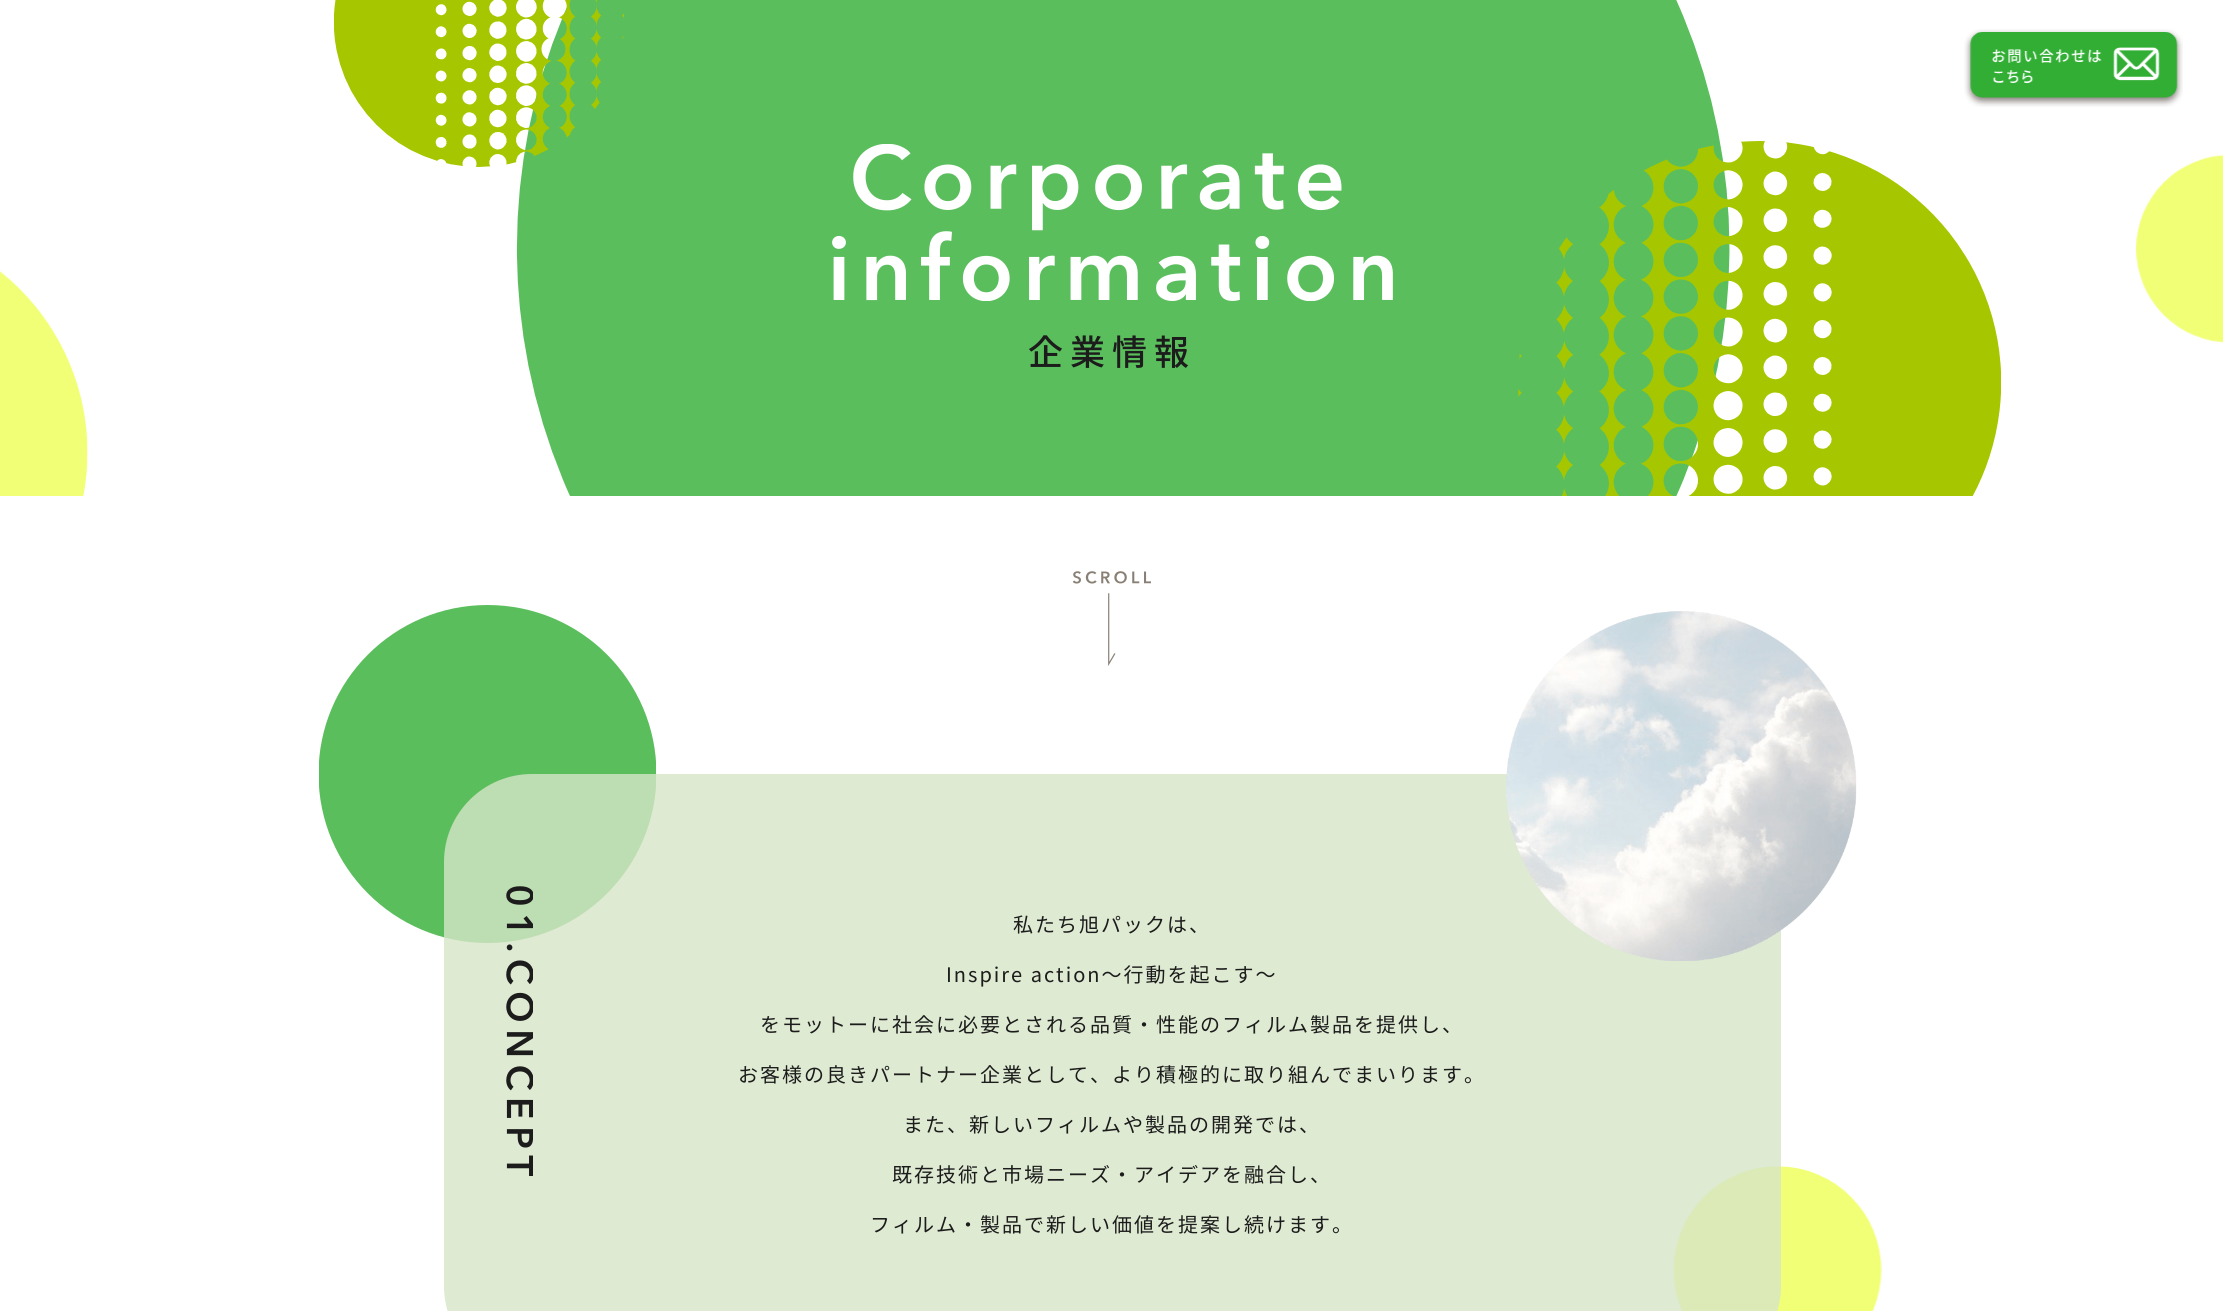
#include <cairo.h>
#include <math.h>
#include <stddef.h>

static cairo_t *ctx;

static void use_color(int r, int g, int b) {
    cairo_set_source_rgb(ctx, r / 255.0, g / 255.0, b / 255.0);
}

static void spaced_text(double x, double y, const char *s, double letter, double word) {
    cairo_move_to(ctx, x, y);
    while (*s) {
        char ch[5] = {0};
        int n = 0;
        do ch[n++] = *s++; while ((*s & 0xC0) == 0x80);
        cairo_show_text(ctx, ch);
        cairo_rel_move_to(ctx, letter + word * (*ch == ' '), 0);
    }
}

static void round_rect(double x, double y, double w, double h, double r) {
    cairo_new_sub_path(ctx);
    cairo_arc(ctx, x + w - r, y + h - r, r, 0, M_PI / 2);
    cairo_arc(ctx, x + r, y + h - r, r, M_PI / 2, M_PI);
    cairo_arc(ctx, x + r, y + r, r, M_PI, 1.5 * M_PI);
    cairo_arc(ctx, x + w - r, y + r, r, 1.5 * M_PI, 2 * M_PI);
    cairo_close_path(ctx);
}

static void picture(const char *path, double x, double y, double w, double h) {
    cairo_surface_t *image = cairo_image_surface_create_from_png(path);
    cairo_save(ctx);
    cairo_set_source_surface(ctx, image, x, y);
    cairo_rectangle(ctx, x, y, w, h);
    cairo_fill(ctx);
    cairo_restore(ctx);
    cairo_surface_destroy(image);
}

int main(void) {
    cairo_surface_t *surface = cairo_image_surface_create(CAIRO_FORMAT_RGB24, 2223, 1311);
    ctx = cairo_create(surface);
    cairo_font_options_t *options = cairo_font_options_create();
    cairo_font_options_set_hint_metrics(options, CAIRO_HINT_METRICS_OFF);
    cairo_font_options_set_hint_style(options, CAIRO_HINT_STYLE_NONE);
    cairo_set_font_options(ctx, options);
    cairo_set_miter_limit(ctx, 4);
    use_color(255, 255, 255);
    cairo_paint(ctx);
    picture("img2.png", 334, 0, 1667, 496);
    picture("img1.png", 1964, 29, 219, 78);
    picture("img3.png", 2136, 154, 87, 189);
    picture("img4.png", 0, 271, 88, 225);
    picture("img5.png", 832, 144, 561, 157);
    cairo_select_font_face(ctx, "Noto Sans JP Medium", CAIRO_FONT_SLANT_NORMAL, CAIRO_FONT_WEIGHT_NORMAL);
    cairo_set_font_size(ctx, 35);
    use_color(28, 28, 28);
    spaced_text(1028, 365, "企業情報", 7, 0);
    picture("img6.png", 1073, 571, 78, 95);
    cairo_save(ctx);
    cairo_rectangle(ctx, 319, 605, 337, 338);
    cairo_clip(ctx);
    use_color(91, 190, 93);
    cairo_arc(ctx, 487.5, 774, 169, 0, 2 * M_PI);
    cairo_fill(ctx);
    cairo_restore(ctx);
    picture("img9.png", 1673, 1166, 209, 145);
    cairo_set_source_rgba(ctx, 0.835, 0.898, 0.78, 0.8);
    round_rect(444, 774, 1337, 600, 88);
    cairo_fill(ctx);
    picture("img7.png", 1506, 611, 351, 350);
    picture("img8.png", 506, 886, 27, 290);
    cairo_select_font_face(ctx, "Noto Sans JP", CAIRO_FONT_SLANT_NORMAL, CAIRO_FONT_WEIGHT_NORMAL);
    cairo_set_font_size(ctx, 20);
    use_color(28, 28, 28);
    spaced_text(1013, 932, "私たち旭パックは、", 2, 0);
    spaced_text(946, 982, "Inspire action～行動を起こす～", 2, 0);
    spaced_text(760, 1032, "をモットーに社会に必要とされる品質・性能のフィルム製品を提供し、", 2, 0);
    spaced_text(738, 1082, "お客様の良きパートナー企業として、より積極的に取り組んでまいります。", 2, 0);
    spaced_text(903, 1132, "また、新しいフィルムや製品の開発では、", 2, 0);
    spaced_text(892, 1182, "既存技術と市場ニーズ・アイデアを融合し、", 2, 0);
    spaced_text(870, 1232, "フィルム・製品で新しい価値を提案し続けます。", 2, 0);
    cairo_surface_write_to_png(surface, "result.png");
    cairo_font_options_destroy(options);
    cairo_destroy(ctx);
    cairo_surface_destroy(surface);
    return 0;
}
